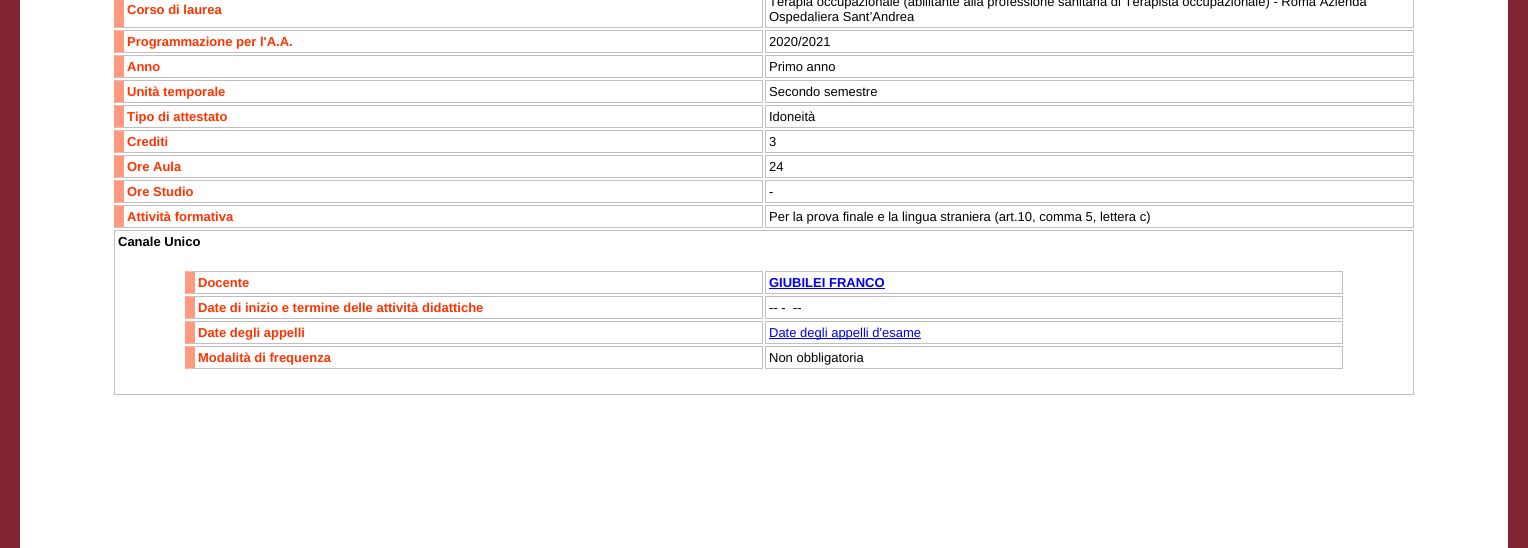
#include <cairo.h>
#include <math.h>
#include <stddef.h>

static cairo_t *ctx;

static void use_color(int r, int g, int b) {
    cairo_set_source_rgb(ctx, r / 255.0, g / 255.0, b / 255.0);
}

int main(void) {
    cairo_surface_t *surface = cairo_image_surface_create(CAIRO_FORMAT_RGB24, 1528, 548);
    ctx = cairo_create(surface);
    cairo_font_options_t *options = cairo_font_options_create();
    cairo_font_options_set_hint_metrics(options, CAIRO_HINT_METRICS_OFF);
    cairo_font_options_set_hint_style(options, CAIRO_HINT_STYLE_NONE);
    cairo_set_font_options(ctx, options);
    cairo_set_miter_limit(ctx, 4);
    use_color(130, 36, 51);
    cairo_paint(ctx);
    use_color(255, 255, 255);
    cairo_rectangle(ctx, 20, 0, 1488, 548);
    cairo_fill(ctx);
    use_color(191, 191, 191);
    cairo_rectangle(ctx, 762, 0, 1, 28);
    cairo_fill(ctx);
    cairo_new_path(ctx);
    cairo_move_to(ctx, 763, 28);
    cairo_line_to(ctx, 114, 28);
    cairo_line_to(ctx, 124, 27);
    cairo_line_to(ctx, 762, 27);
    cairo_close_path(ctx);
    cairo_fill(ctx);
    use_color(255, 154, 128);
    cairo_new_path(ctx);
    cairo_move_to(ctx, 114, 28);
    cairo_line_to(ctx, 114, -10);
    cairo_line_to(ctx, 124, -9);
    cairo_line_to(ctx, 124, 27);
    cairo_close_path(ctx);
    cairo_fill(ctx);
    cairo_select_font_face(ctx, "Liberation Sans", CAIRO_FONT_SLANT_NORMAL, CAIRO_FONT_WEIGHT_BOLD);
    cairo_set_font_size(ctx, 13);
    use_color(255, 51, 0);
    cairo_move_to(ctx, 127, 14);
    cairo_show_text(ctx, "Corso di laurea");
    cairo_rectangle(ctx, 765.5, -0.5, 648, 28);
    use_color(191, 191, 191);
    cairo_set_line_width(ctx, 1);
    cairo_stroke(ctx);
    cairo_select_font_face(ctx, "Liberation Sans", CAIRO_FONT_SLANT_NORMAL, CAIRO_FONT_WEIGHT_NORMAL);
    use_color(0, 0, 0);
    cairo_move_to(ctx, 769, 6);
    cairo_show_text(ctx, "Terapia occupazionale (abilitante alla professione sanitaria di Terapista occupazionale) - Roma Azienda");
    cairo_move_to(ctx, 769, 21);
    cairo_show_text(ctx, "Ospedaliera Sant’Andrea");
    use_color(191, 191, 191);
    cairo_new_path(ctx);
    cairo_move_to(ctx, 114, 30);
    cairo_line_to(ctx, 763, 30);
    cairo_line_to(ctx, 762, 31);
    cairo_line_to(ctx, 124, 31);
    cairo_close_path(ctx);
    cairo_fill(ctx);
    cairo_rectangle(ctx, 762, 30, 1, 23);
    cairo_fill(ctx);
    cairo_new_path(ctx);
    cairo_move_to(ctx, 763, 53);
    cairo_line_to(ctx, 114, 53);
    cairo_line_to(ctx, 124, 52);
    cairo_line_to(ctx, 762, 52);
    cairo_close_path(ctx);
    cairo_fill(ctx);
    use_color(255, 154, 128);
    cairo_new_path(ctx);
    cairo_move_to(ctx, 114, 53);
    cairo_line_to(ctx, 114, 30);
    cairo_line_to(ctx, 124, 31);
    cairo_line_to(ctx, 124, 52);
    cairo_close_path(ctx);
    cairo_fill(ctx);
    cairo_select_font_face(ctx, "Liberation Sans", CAIRO_FONT_SLANT_NORMAL, CAIRO_FONT_WEIGHT_BOLD);
    use_color(255, 51, 0);
    cairo_move_to(ctx, 127, 46);
    cairo_show_text(ctx, "Programmazione per l'A.A.");
    cairo_rectangle(ctx, 765.5, 30.5, 648, 22);
    use_color(191, 191, 191);
    cairo_stroke(ctx);
    cairo_select_font_face(ctx, "Liberation Sans", CAIRO_FONT_SLANT_NORMAL, CAIRO_FONT_WEIGHT_NORMAL);
    use_color(0, 0, 0);
    cairo_move_to(ctx, 769, 46);
    cairo_show_text(ctx, "2020/2021");
    use_color(191, 191, 191);
    cairo_new_path(ctx);
    cairo_move_to(ctx, 114, 55);
    cairo_line_to(ctx, 763, 55);
    cairo_line_to(ctx, 762, 56);
    cairo_line_to(ctx, 124, 56);
    cairo_close_path(ctx);
    cairo_fill(ctx);
    cairo_rectangle(ctx, 762, 55, 1, 23);
    cairo_fill(ctx);
    cairo_new_path(ctx);
    cairo_move_to(ctx, 763, 78);
    cairo_line_to(ctx, 114, 78);
    cairo_line_to(ctx, 124, 77);
    cairo_line_to(ctx, 762, 77);
    cairo_close_path(ctx);
    cairo_fill(ctx);
    use_color(255, 154, 128);
    cairo_new_path(ctx);
    cairo_move_to(ctx, 114, 78);
    cairo_line_to(ctx, 114, 55);
    cairo_line_to(ctx, 124, 56);
    cairo_line_to(ctx, 124, 77);
    cairo_close_path(ctx);
    cairo_fill(ctx);
    cairo_select_font_face(ctx, "Liberation Sans", CAIRO_FONT_SLANT_NORMAL, CAIRO_FONT_WEIGHT_BOLD);
    use_color(255, 51, 0);
    cairo_move_to(ctx, 127, 71);
    cairo_show_text(ctx, "Anno");
    cairo_rectangle(ctx, 765.5, 55.5, 648, 22);
    use_color(191, 191, 191);
    cairo_stroke(ctx);
    cairo_select_font_face(ctx, "Liberation Sans", CAIRO_FONT_SLANT_NORMAL, CAIRO_FONT_WEIGHT_NORMAL);
    use_color(0, 0, 0);
    cairo_move_to(ctx, 769, 71);
    cairo_show_text(ctx, "Primo anno");
    use_color(191, 191, 191);
    cairo_new_path(ctx);
    cairo_move_to(ctx, 114, 80);
    cairo_line_to(ctx, 763, 80);
    cairo_line_to(ctx, 762, 81);
    cairo_line_to(ctx, 124, 81);
    cairo_close_path(ctx);
    cairo_fill(ctx);
    cairo_rectangle(ctx, 762, 80, 1, 23);
    cairo_fill(ctx);
    cairo_new_path(ctx);
    cairo_move_to(ctx, 763, 103);
    cairo_line_to(ctx, 114, 103);
    cairo_line_to(ctx, 124, 102);
    cairo_line_to(ctx, 762, 102);
    cairo_close_path(ctx);
    cairo_fill(ctx);
    use_color(255, 154, 128);
    cairo_new_path(ctx);
    cairo_move_to(ctx, 114, 103);
    cairo_line_to(ctx, 114, 80);
    cairo_line_to(ctx, 124, 81);
    cairo_line_to(ctx, 124, 102);
    cairo_close_path(ctx);
    cairo_fill(ctx);
    cairo_select_font_face(ctx, "Liberation Sans", CAIRO_FONT_SLANT_NORMAL, CAIRO_FONT_WEIGHT_BOLD);
    use_color(255, 51, 0);
    cairo_move_to(ctx, 127, 96);
    cairo_show_text(ctx, "Unità temporale");
    cairo_rectangle(ctx, 765.5, 80.5, 648, 22);
    use_color(191, 191, 191);
    cairo_stroke(ctx);
    cairo_select_font_face(ctx, "Liberation Sans", CAIRO_FONT_SLANT_NORMAL, CAIRO_FONT_WEIGHT_NORMAL);
    use_color(0, 0, 0);
    cairo_move_to(ctx, 769, 96);
    cairo_show_text(ctx, "Secondo semestre");
    use_color(191, 191, 191);
    cairo_new_path(ctx);
    cairo_move_to(ctx, 114, 105);
    cairo_line_to(ctx, 763, 105);
    cairo_line_to(ctx, 762, 106);
    cairo_line_to(ctx, 124, 106);
    cairo_close_path(ctx);
    cairo_fill(ctx);
    cairo_rectangle(ctx, 762, 105, 1, 23);
    cairo_fill(ctx);
    cairo_new_path(ctx);
    cairo_move_to(ctx, 763, 128);
    cairo_line_to(ctx, 114, 128);
    cairo_line_to(ctx, 124, 127);
    cairo_line_to(ctx, 762, 127);
    cairo_close_path(ctx);
    cairo_fill(ctx);
    use_color(255, 154, 128);
    cairo_new_path(ctx);
    cairo_move_to(ctx, 114, 128);
    cairo_line_to(ctx, 114, 105);
    cairo_line_to(ctx, 124, 106);
    cairo_line_to(ctx, 124, 127);
    cairo_close_path(ctx);
    cairo_fill(ctx);
    cairo_select_font_face(ctx, "Liberation Sans", CAIRO_FONT_SLANT_NORMAL, CAIRO_FONT_WEIGHT_BOLD);
    use_color(255, 51, 0);
    cairo_move_to(ctx, 127, 121);
    cairo_show_text(ctx, "Tipo di attestato");
    cairo_rectangle(ctx, 765.5, 105.5, 648, 22);
    use_color(191, 191, 191);
    cairo_stroke(ctx);
    cairo_select_font_face(ctx, "Liberation Sans", CAIRO_FONT_SLANT_NORMAL, CAIRO_FONT_WEIGHT_NORMAL);
    use_color(0, 0, 0);
    cairo_move_to(ctx, 769, 121);
    cairo_show_text(ctx, "Idoneità");
    use_color(191, 191, 191);
    cairo_new_path(ctx);
    cairo_move_to(ctx, 114, 130);
    cairo_line_to(ctx, 763, 130);
    cairo_line_to(ctx, 762, 131);
    cairo_line_to(ctx, 124, 131);
    cairo_close_path(ctx);
    cairo_fill(ctx);
    cairo_rectangle(ctx, 762, 130, 1, 23);
    cairo_fill(ctx);
    cairo_new_path(ctx);
    cairo_move_to(ctx, 763, 153);
    cairo_line_to(ctx, 114, 153);
    cairo_line_to(ctx, 124, 152);
    cairo_line_to(ctx, 762, 152);
    cairo_close_path(ctx);
    cairo_fill(ctx);
    use_color(255, 154, 128);
    cairo_new_path(ctx);
    cairo_move_to(ctx, 114, 153);
    cairo_line_to(ctx, 114, 130);
    cairo_line_to(ctx, 124, 131);
    cairo_line_to(ctx, 124, 152);
    cairo_close_path(ctx);
    cairo_fill(ctx);
    cairo_select_font_face(ctx, "Liberation Sans", CAIRO_FONT_SLANT_NORMAL, CAIRO_FONT_WEIGHT_BOLD);
    use_color(255, 51, 0);
    cairo_move_to(ctx, 127, 146);
    cairo_show_text(ctx, "Crediti");
    cairo_rectangle(ctx, 765.5, 130.5, 648, 22);
    use_color(191, 191, 191);
    cairo_stroke(ctx);
    cairo_select_font_face(ctx, "Liberation Sans", CAIRO_FONT_SLANT_NORMAL, CAIRO_FONT_WEIGHT_NORMAL);
    use_color(0, 0, 0);
    cairo_move_to(ctx, 769, 146);
    cairo_show_text(ctx, "3");
    use_color(191, 191, 191);
    cairo_new_path(ctx);
    cairo_move_to(ctx, 114, 155);
    cairo_line_to(ctx, 763, 155);
    cairo_line_to(ctx, 762, 156);
    cairo_line_to(ctx, 124, 156);
    cairo_close_path(ctx);
    cairo_fill(ctx);
    cairo_rectangle(ctx, 762, 155, 1, 23);
    cairo_fill(ctx);
    cairo_new_path(ctx);
    cairo_move_to(ctx, 763, 178);
    cairo_line_to(ctx, 114, 178);
    cairo_line_to(ctx, 124, 177);
    cairo_line_to(ctx, 762, 177);
    cairo_close_path(ctx);
    cairo_fill(ctx);
    use_color(255, 154, 128);
    cairo_new_path(ctx);
    cairo_move_to(ctx, 114, 178);
    cairo_line_to(ctx, 114, 155);
    cairo_line_to(ctx, 124, 156);
    cairo_line_to(ctx, 124, 177);
    cairo_close_path(ctx);
    cairo_fill(ctx);
    cairo_select_font_face(ctx, "Liberation Sans", CAIRO_FONT_SLANT_NORMAL, CAIRO_FONT_WEIGHT_BOLD);
    use_color(255, 51, 0);
    cairo_move_to(ctx, 127, 171);
    cairo_show_text(ctx, "Ore Aula");
    cairo_rectangle(ctx, 765.5, 155.5, 648, 22);
    use_color(191, 191, 191);
    cairo_stroke(ctx);
    cairo_select_font_face(ctx, "Liberation Sans", CAIRO_FONT_SLANT_NORMAL, CAIRO_FONT_WEIGHT_NORMAL);
    use_color(0, 0, 0);
    cairo_move_to(ctx, 769, 171);
    cairo_show_text(ctx, "24");
    use_color(191, 191, 191);
    cairo_new_path(ctx);
    cairo_move_to(ctx, 114, 180);
    cairo_line_to(ctx, 763, 180);
    cairo_line_to(ctx, 762, 181);
    cairo_line_to(ctx, 124, 181);
    cairo_close_path(ctx);
    cairo_fill(ctx);
    cairo_rectangle(ctx, 762, 180, 1, 23);
    cairo_fill(ctx);
    cairo_new_path(ctx);
    cairo_move_to(ctx, 763, 203);
    cairo_line_to(ctx, 114, 203);
    cairo_line_to(ctx, 124, 202);
    cairo_line_to(ctx, 762, 202);
    cairo_close_path(ctx);
    cairo_fill(ctx);
    use_color(255, 154, 128);
    cairo_new_path(ctx);
    cairo_move_to(ctx, 114, 203);
    cairo_line_to(ctx, 114, 180);
    cairo_line_to(ctx, 124, 181);
    cairo_line_to(ctx, 124, 202);
    cairo_close_path(ctx);
    cairo_fill(ctx);
    cairo_select_font_face(ctx, "Liberation Sans", CAIRO_FONT_SLANT_NORMAL, CAIRO_FONT_WEIGHT_BOLD);
    use_color(255, 51, 0);
    cairo_move_to(ctx, 127, 196);
    cairo_show_text(ctx, "Ore Studio");
    cairo_rectangle(ctx, 765.5, 180.5, 648, 22);
    use_color(191, 191, 191);
    cairo_stroke(ctx);
    cairo_select_font_face(ctx, "Liberation Sans", CAIRO_FONT_SLANT_NORMAL, CAIRO_FONT_WEIGHT_NORMAL);
    use_color(0, 0, 0);
    cairo_move_to(ctx, 769, 196);
    cairo_show_text(ctx, "-");
    use_color(191, 191, 191);
    cairo_new_path(ctx);
    cairo_move_to(ctx, 114, 205);
    cairo_line_to(ctx, 763, 205);
    cairo_line_to(ctx, 762, 206);
    cairo_line_to(ctx, 124, 206);
    cairo_close_path(ctx);
    cairo_fill(ctx);
    cairo_rectangle(ctx, 762, 205, 1, 23);
    cairo_fill(ctx);
    cairo_new_path(ctx);
    cairo_move_to(ctx, 763, 228);
    cairo_line_to(ctx, 114, 228);
    cairo_line_to(ctx, 124, 227);
    cairo_line_to(ctx, 762, 227);
    cairo_close_path(ctx);
    cairo_fill(ctx);
    use_color(255, 154, 128);
    cairo_new_path(ctx);
    cairo_move_to(ctx, 114, 228);
    cairo_line_to(ctx, 114, 205);
    cairo_line_to(ctx, 124, 206);
    cairo_line_to(ctx, 124, 227);
    cairo_close_path(ctx);
    cairo_fill(ctx);
    cairo_select_font_face(ctx, "Liberation Sans", CAIRO_FONT_SLANT_NORMAL, CAIRO_FONT_WEIGHT_BOLD);
    use_color(255, 51, 0);
    cairo_move_to(ctx, 127, 221);
    cairo_show_text(ctx, "Attività formativa");
    cairo_rectangle(ctx, 765.5, 205.5, 648, 22);
    use_color(191, 191, 191);
    cairo_stroke(ctx);
    cairo_select_font_face(ctx, "Liberation Sans", CAIRO_FONT_SLANT_NORMAL, CAIRO_FONT_WEIGHT_NORMAL);
    use_color(0, 0, 0);
    cairo_move_to(ctx, 769, 221);
    cairo_show_text(ctx, "Per la prova finale e la lingua straniera (art.10, comma 5, lettera c)");
    cairo_rectangle(ctx, 114.5, 230.5, 1299, 164);
    use_color(191, 191, 191);
    cairo_stroke(ctx);
    cairo_select_font_face(ctx, "Liberation Sans", CAIRO_FONT_SLANT_NORMAL, CAIRO_FONT_WEIGHT_BOLD);
    use_color(0, 0, 0);
    cairo_move_to(ctx, 118, 246);
    cairo_show_text(ctx, "Canale Unico");
    use_color(191, 191, 191);
    cairo_new_path(ctx);
    cairo_move_to(ctx, 185, 271);
    cairo_line_to(ctx, 763, 271);
    cairo_line_to(ctx, 762, 272);
    cairo_line_to(ctx, 195, 272);
    cairo_close_path(ctx);
    cairo_fill(ctx);
    cairo_rectangle(ctx, 762, 271, 1, 23);
    cairo_fill(ctx);
    cairo_new_path(ctx);
    cairo_move_to(ctx, 763, 294);
    cairo_line_to(ctx, 185, 294);
    cairo_line_to(ctx, 195, 293);
    cairo_line_to(ctx, 762, 293);
    cairo_close_path(ctx);
    cairo_fill(ctx);
    use_color(255, 154, 128);
    cairo_new_path(ctx);
    cairo_move_to(ctx, 185, 294);
    cairo_line_to(ctx, 185, 271);
    cairo_line_to(ctx, 195, 272);
    cairo_line_to(ctx, 195, 293);
    cairo_close_path(ctx);
    cairo_fill(ctx);
    use_color(255, 51, 0);
    cairo_move_to(ctx, 198, 287);
    cairo_show_text(ctx, "Docente");
    cairo_rectangle(ctx, 765.5, 271.5, 577, 22);
    use_color(191, 191, 191);
    cairo_stroke(ctx);
    use_color(0, 0, 238);
    cairo_move_to(ctx, 769, 287);
    cairo_show_text(ctx, "GIUBILEI FRANCO");
    cairo_rectangle(ctx, 769, 288, 116, 1);
    cairo_fill(ctx);
    use_color(191, 191, 191);
    cairo_new_path(ctx);
    cairo_move_to(ctx, 185, 296);
    cairo_line_to(ctx, 763, 296);
    cairo_line_to(ctx, 762, 297);
    cairo_line_to(ctx, 195, 297);
    cairo_close_path(ctx);
    cairo_fill(ctx);
    cairo_rectangle(ctx, 762, 296, 1, 23);
    cairo_fill(ctx);
    cairo_new_path(ctx);
    cairo_move_to(ctx, 763, 319);
    cairo_line_to(ctx, 185, 319);
    cairo_line_to(ctx, 195, 318);
    cairo_line_to(ctx, 762, 318);
    cairo_close_path(ctx);
    cairo_fill(ctx);
    use_color(255, 154, 128);
    cairo_new_path(ctx);
    cairo_move_to(ctx, 185, 319);
    cairo_line_to(ctx, 185, 296);
    cairo_line_to(ctx, 195, 297);
    cairo_line_to(ctx, 195, 318);
    cairo_close_path(ctx);
    cairo_fill(ctx);
    use_color(255, 51, 0);
    cairo_move_to(ctx, 198, 312);
    cairo_show_text(ctx, "Date di inizio e termine delle attività didattiche");
    cairo_rectangle(ctx, 765.5, 296.5, 577, 22);
    use_color(191, 191, 191);
    cairo_stroke(ctx);
    cairo_select_font_face(ctx, "Liberation Sans", CAIRO_FONT_SLANT_NORMAL, CAIRO_FONT_WEIGHT_NORMAL);
    use_color(0, 0, 0);
    cairo_move_to(ctx, 769, 312);
    cairo_show_text(ctx, "-- -");
    cairo_move_to(ctx, 793, 312);
    cairo_show_text(ctx, "--");
    use_color(191, 191, 191);
    cairo_new_path(ctx);
    cairo_move_to(ctx, 185, 321);
    cairo_line_to(ctx, 763, 321);
    cairo_line_to(ctx, 762, 322);
    cairo_line_to(ctx, 195, 322);
    cairo_close_path(ctx);
    cairo_fill(ctx);
    cairo_rectangle(ctx, 762, 321, 1, 23);
    cairo_fill(ctx);
    cairo_new_path(ctx);
    cairo_move_to(ctx, 763, 344);
    cairo_line_to(ctx, 185, 344);
    cairo_line_to(ctx, 195, 343);
    cairo_line_to(ctx, 762, 343);
    cairo_close_path(ctx);
    cairo_fill(ctx);
    use_color(255, 154, 128);
    cairo_new_path(ctx);
    cairo_move_to(ctx, 185, 344);
    cairo_line_to(ctx, 185, 321);
    cairo_line_to(ctx, 195, 322);
    cairo_line_to(ctx, 195, 343);
    cairo_close_path(ctx);
    cairo_fill(ctx);
    cairo_select_font_face(ctx, "Liberation Sans", CAIRO_FONT_SLANT_NORMAL, CAIRO_FONT_WEIGHT_BOLD);
    use_color(255, 51, 0);
    cairo_move_to(ctx, 198, 337);
    cairo_show_text(ctx, "Date degli appelli");
    cairo_rectangle(ctx, 765.5, 321.5, 577, 22);
    use_color(191, 191, 191);
    cairo_stroke(ctx);
    use_color(0, 0, 238);
    cairo_rectangle(ctx, 769, 338, 152, 1);
    cairo_fill(ctx);
    cairo_select_font_face(ctx, "Liberation Sans", CAIRO_FONT_SLANT_NORMAL, CAIRO_FONT_WEIGHT_NORMAL);
    cairo_move_to(ctx, 769, 337);
    cairo_show_text(ctx, "Date degli appelli d'esame");
    use_color(191, 191, 191);
    cairo_new_path(ctx);
    cairo_move_to(ctx, 185, 346);
    cairo_line_to(ctx, 763, 346);
    cairo_line_to(ctx, 762, 347);
    cairo_line_to(ctx, 195, 347);
    cairo_close_path(ctx);
    cairo_fill(ctx);
    cairo_rectangle(ctx, 762, 346, 1, 23);
    cairo_fill(ctx);
    cairo_new_path(ctx);
    cairo_move_to(ctx, 763, 369);
    cairo_line_to(ctx, 185, 369);
    cairo_line_to(ctx, 195, 368);
    cairo_line_to(ctx, 762, 368);
    cairo_close_path(ctx);
    cairo_fill(ctx);
    use_color(255, 154, 128);
    cairo_new_path(ctx);
    cairo_move_to(ctx, 185, 369);
    cairo_line_to(ctx, 185, 346);
    cairo_line_to(ctx, 195, 347);
    cairo_line_to(ctx, 195, 368);
    cairo_close_path(ctx);
    cairo_fill(ctx);
    cairo_select_font_face(ctx, "Liberation Sans", CAIRO_FONT_SLANT_NORMAL, CAIRO_FONT_WEIGHT_BOLD);
    use_color(255, 51, 0);
    cairo_move_to(ctx, 198, 362);
    cairo_show_text(ctx, "Modalità di frequenza");
    cairo_rectangle(ctx, 765.5, 346.5, 577, 22);
    use_color(191, 191, 191);
    cairo_stroke(ctx);
    cairo_select_font_face(ctx, "Liberation Sans", CAIRO_FONT_SLANT_NORMAL, CAIRO_FONT_WEIGHT_NORMAL);
    use_color(0, 0, 0);
    cairo_move_to(ctx, 769, 362);
    cairo_show_text(ctx, "Non obbligatoria");
    cairo_surface_write_to_png(surface, "result.png");
    cairo_font_options_destroy(options);
    cairo_destroy(ctx);
    cairo_surface_destroy(surface);
    return 0;
}
